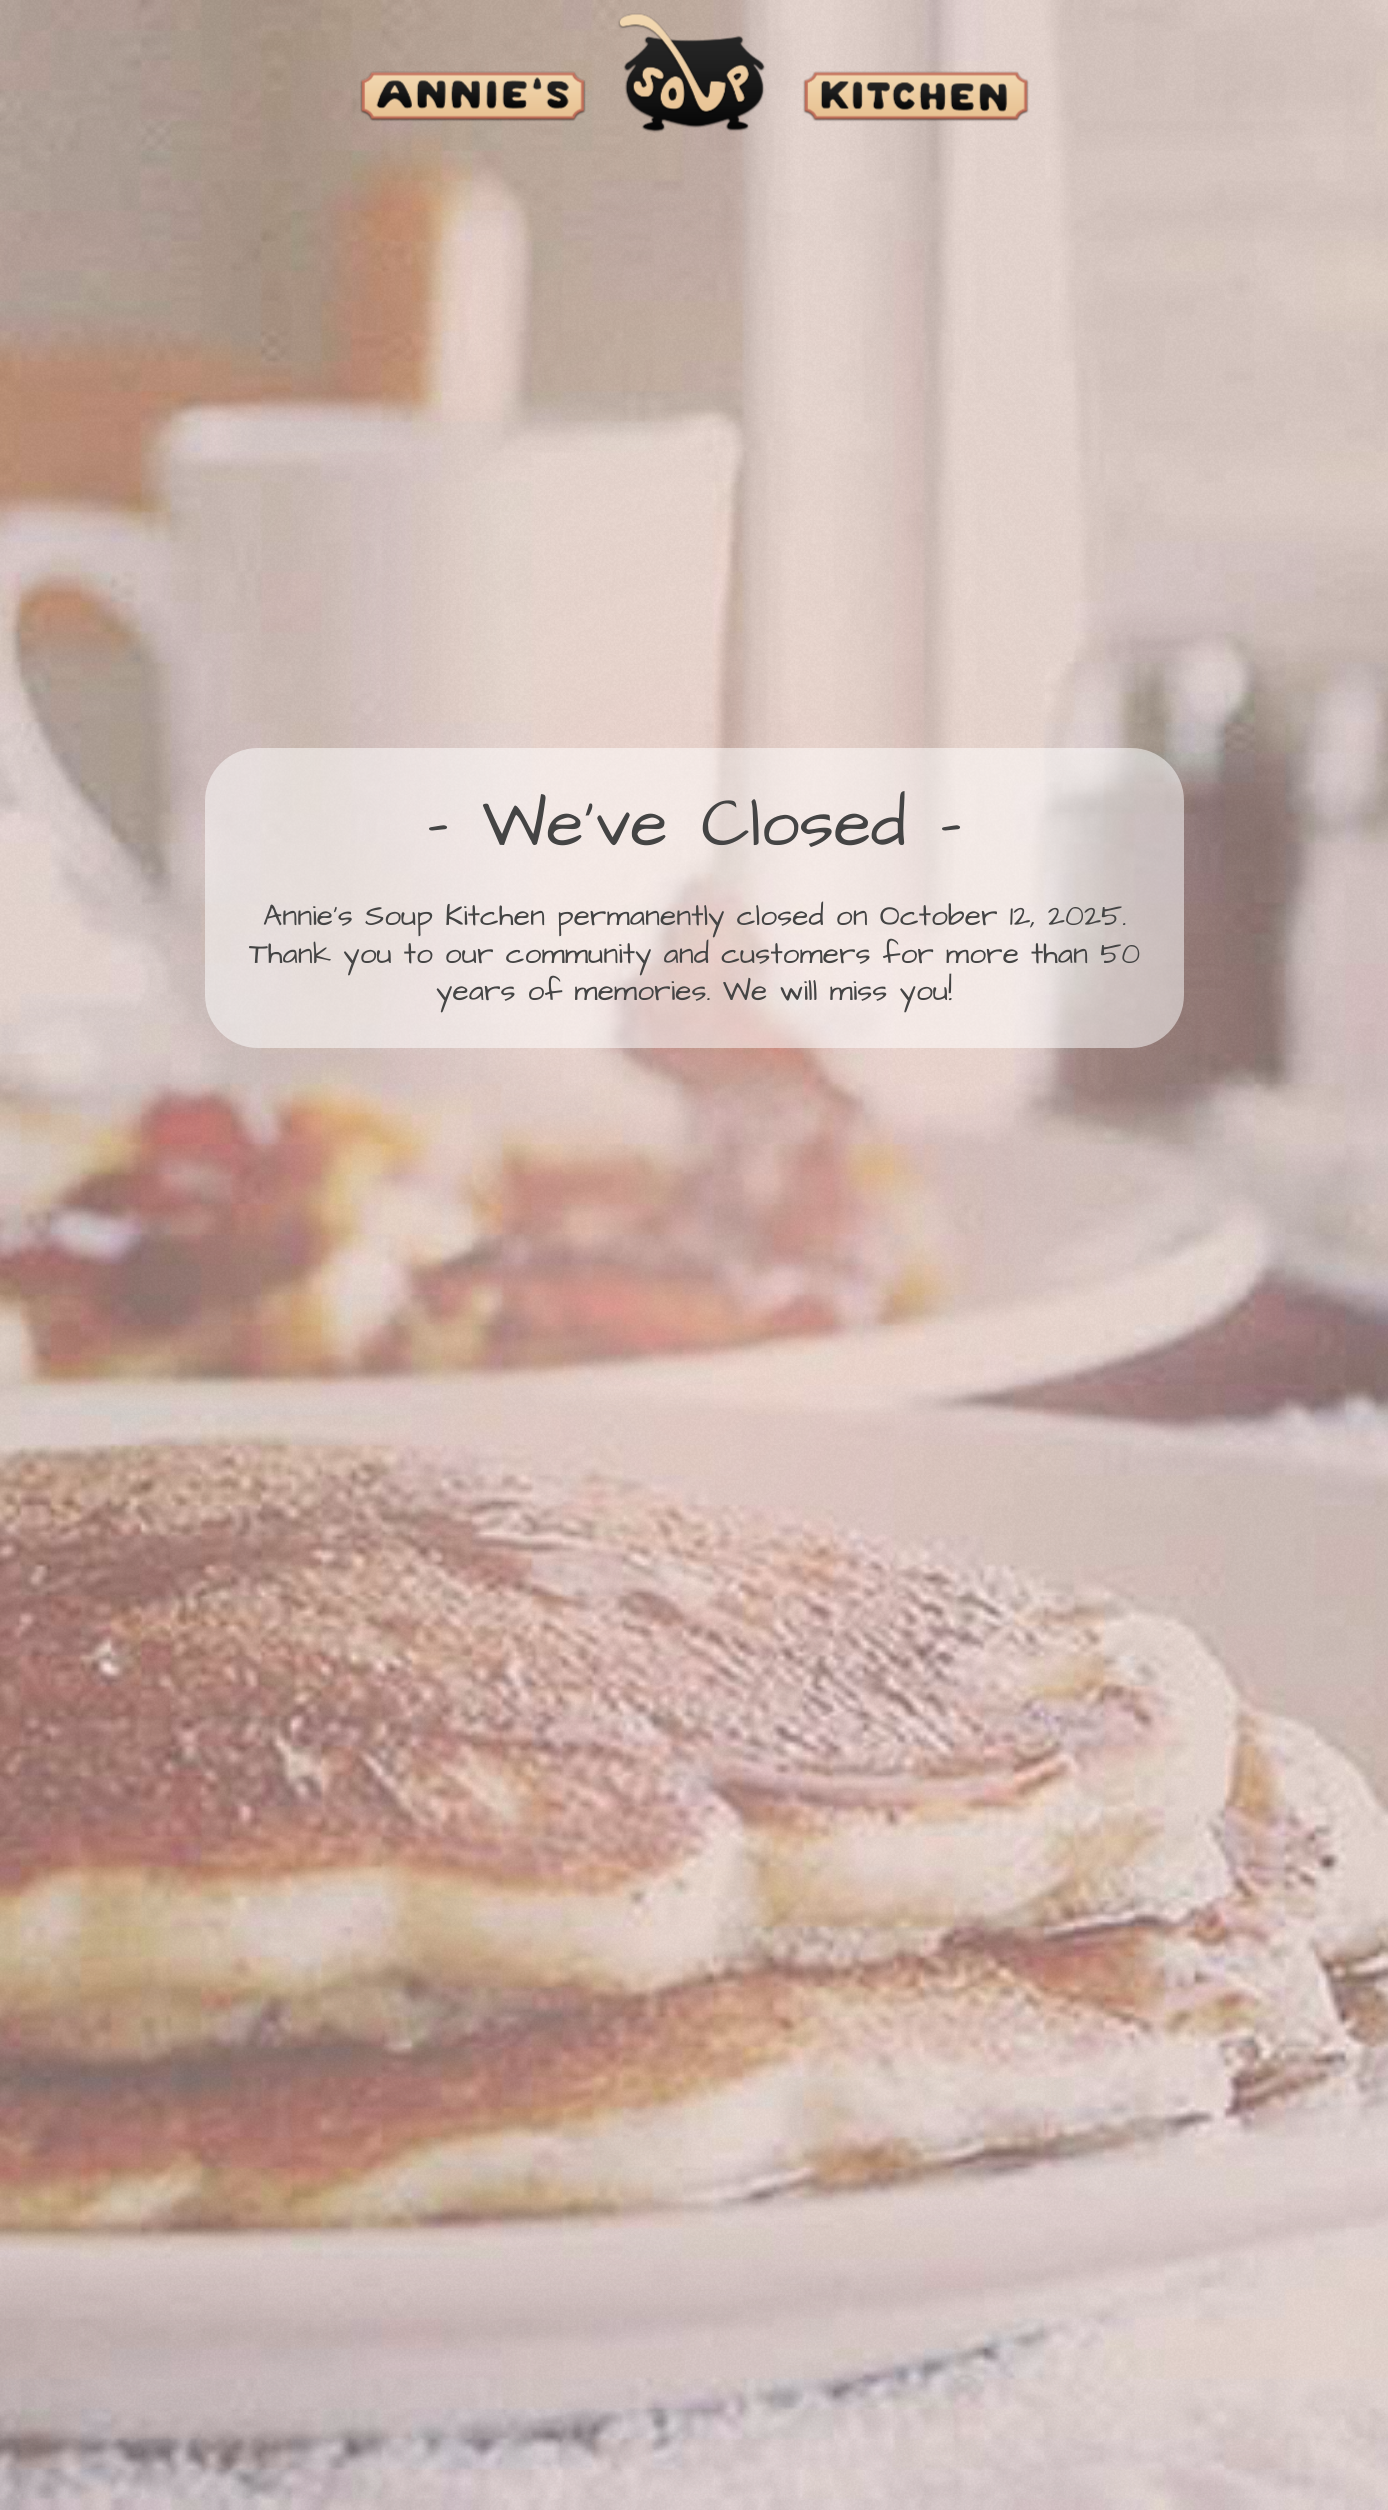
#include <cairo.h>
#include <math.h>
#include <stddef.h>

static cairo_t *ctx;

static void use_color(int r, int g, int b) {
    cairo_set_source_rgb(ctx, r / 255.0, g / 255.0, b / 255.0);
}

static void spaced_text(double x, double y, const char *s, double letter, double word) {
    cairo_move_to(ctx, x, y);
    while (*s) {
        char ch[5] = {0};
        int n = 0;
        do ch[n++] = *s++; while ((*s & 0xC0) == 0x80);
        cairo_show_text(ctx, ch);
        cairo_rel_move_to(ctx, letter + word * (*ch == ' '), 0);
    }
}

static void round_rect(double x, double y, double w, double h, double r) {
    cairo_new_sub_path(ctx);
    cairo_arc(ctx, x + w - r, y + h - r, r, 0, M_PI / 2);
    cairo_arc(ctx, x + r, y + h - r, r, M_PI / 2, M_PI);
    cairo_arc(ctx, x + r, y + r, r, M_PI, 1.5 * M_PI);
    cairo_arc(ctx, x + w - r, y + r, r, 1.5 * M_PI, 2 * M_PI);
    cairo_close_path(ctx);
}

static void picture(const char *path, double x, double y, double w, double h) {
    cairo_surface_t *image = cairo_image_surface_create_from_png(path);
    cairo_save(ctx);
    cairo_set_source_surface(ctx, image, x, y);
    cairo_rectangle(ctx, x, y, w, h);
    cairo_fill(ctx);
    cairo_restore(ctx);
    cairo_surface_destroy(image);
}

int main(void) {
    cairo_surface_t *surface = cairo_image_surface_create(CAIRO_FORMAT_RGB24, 1388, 2510);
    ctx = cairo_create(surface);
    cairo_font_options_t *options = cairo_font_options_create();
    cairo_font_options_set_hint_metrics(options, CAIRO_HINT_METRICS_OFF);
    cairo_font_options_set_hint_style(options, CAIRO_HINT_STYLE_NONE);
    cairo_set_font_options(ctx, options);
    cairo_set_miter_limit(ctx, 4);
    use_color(255, 255, 255);
    cairo_paint(ctx);
    picture("img1.png", 0, 0, 1388, 2510);
    picture("img2.png", 0, 0, 1388, 2510);
    picture("img3.png", 360, 13, 669, 120);
    cairo_set_source_rgba(ctx, 1, 1, 1, 0.5);
    round_rect(205, 748, 979, 300, 53);
    cairo_fill(ctx);
    cairo_select_font_face(ctx, "Architects Daughter", CAIRO_FONT_SLANT_NORMAL, CAIRO_FONT_WEIGHT_NORMAL);
    cairo_set_font_size(ctx, 68.75);
    use_color(68, 68, 68);
    spaced_text(427, 845, "- We've Closed -", 0, 6);
    cairo_set_font_size(ctx, 30);
    cairo_move_to(ctx, 263, 925);
    cairo_show_text(ctx, "Annie's Soup Kitchen permanently closed on October 12, 2025.");
    cairo_move_to(ctx, 249, 963);
    cairo_show_text(ctx, "Thank you to our community and customers for more than 50");
    cairo_move_to(ctx, 436, 1000);
    cairo_show_text(ctx, "years of memories. We will miss you!");
    cairo_surface_write_to_png(surface, "result.png");
    cairo_font_options_destroy(options);
    cairo_destroy(ctx);
    cairo_surface_destroy(surface);
    return 0;
}
